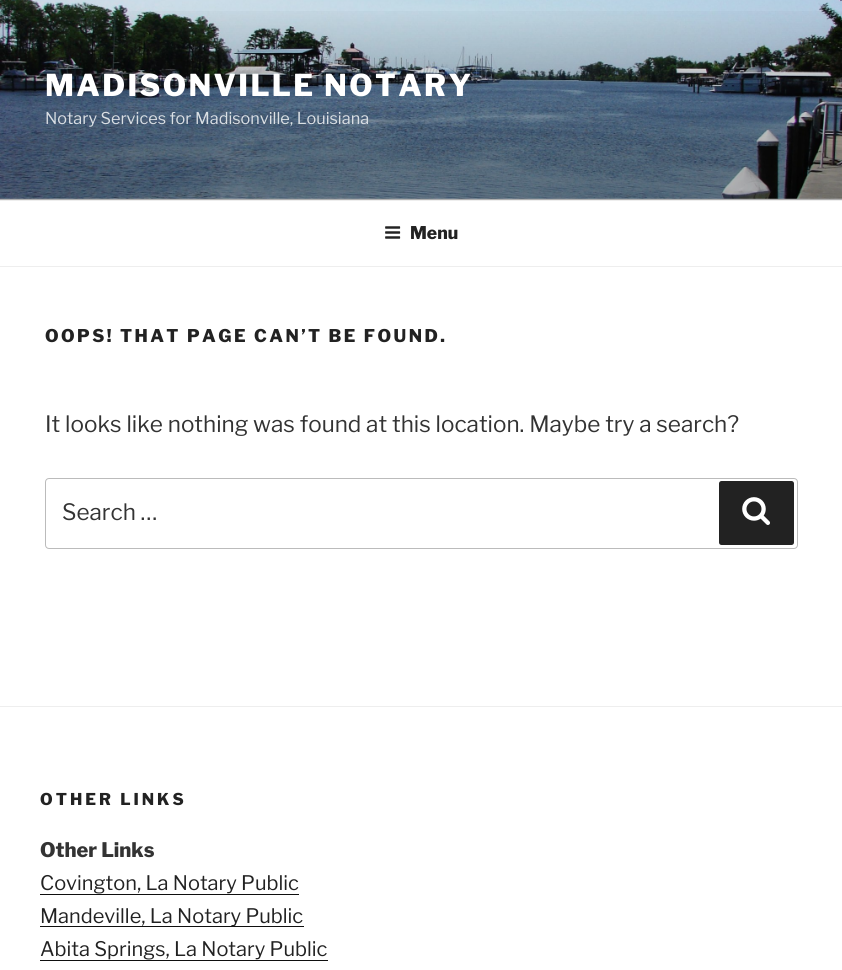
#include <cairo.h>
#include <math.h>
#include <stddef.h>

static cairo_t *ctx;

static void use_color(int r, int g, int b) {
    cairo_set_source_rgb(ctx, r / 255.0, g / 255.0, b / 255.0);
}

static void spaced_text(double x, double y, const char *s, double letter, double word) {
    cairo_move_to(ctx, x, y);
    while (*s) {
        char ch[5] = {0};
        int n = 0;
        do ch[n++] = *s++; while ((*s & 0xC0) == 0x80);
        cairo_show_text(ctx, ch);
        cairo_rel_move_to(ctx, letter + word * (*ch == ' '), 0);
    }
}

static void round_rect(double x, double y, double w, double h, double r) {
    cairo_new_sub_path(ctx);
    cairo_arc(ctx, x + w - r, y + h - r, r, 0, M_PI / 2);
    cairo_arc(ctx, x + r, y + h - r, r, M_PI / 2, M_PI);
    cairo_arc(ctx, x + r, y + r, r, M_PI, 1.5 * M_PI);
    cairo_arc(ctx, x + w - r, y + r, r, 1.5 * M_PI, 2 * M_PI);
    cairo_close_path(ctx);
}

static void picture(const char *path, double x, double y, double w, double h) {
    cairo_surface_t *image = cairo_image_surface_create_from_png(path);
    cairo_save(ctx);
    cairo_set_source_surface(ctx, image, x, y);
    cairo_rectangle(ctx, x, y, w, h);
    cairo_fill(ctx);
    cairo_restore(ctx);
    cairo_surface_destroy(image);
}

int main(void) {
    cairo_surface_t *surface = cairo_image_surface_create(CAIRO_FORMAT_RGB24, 842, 970);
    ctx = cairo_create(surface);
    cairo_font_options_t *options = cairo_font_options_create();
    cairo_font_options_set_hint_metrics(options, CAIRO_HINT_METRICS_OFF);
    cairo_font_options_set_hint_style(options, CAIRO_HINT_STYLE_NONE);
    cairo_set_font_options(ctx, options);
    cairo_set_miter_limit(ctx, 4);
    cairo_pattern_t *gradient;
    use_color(255, 255, 255);
    cairo_paint(ctx);
    use_color(250, 250, 250);
    cairo_rectangle(ctx, 0, 198, 842, 2);
    cairo_fill(ctx);
    picture("img1.png", 0, 0, 842, 199);
    gradient = cairo_pattern_create_linear(421, 0, 421, 200);
    cairo_pattern_add_color_stop_rgba(gradient, 0, 0, 0, 0, 0);
    cairo_pattern_add_color_stop_rgba(gradient, 0.75, 0, 0, 0, 0.3);
    cairo_pattern_add_color_stop_rgba(gradient, 1, 0, 0, 0, 0.3);
    cairo_set_source(ctx, gradient);
    cairo_pattern_destroy(gradient);
    cairo_rectangle(ctx, 0, 11, 842, 189);
    cairo_fill(ctx);
    cairo_select_font_face(ctx, "Libre Franklin ExtraBold", CAIRO_FONT_SLANT_NORMAL, CAIRO_FONT_WEIGHT_NORMAL);
    cairo_set_font_size(ctx, 30);
    use_color(255, 255, 255);
    spaced_text(45, 96, "MADISONVILLE NOTARY", 2.4, 0);
    cairo_select_font_face(ctx, "Libre Franklin", CAIRO_FONT_SLANT_NORMAL, CAIRO_FONT_WEIGHT_NORMAL);
    cairo_set_font_size(ctx, 16.25);
    use_color(218, 223, 228);
    cairo_move_to(ctx, 45, 124);
    cairo_show_text(ctx, "Notary Services for Madisonville, Louisiana");
    use_color(238, 238, 238);
    cairo_rectangle(ctx, 0, 200, 842, 1);
    cairo_fill(ctx);
    cairo_rectangle(ctx, 0, 266, 842, 1);
    cairo_fill(ctx);
    picture("img2.png", 385, 226, 16, 13);
    cairo_select_font_face(ctx, "Libre Franklin ExtraBold", CAIRO_FONT_SLANT_NORMAL, CAIRO_FONT_WEIGHT_NORMAL);
    cairo_set_font_size(ctx, 17.5);
    use_color(34, 34, 34);
    cairo_move_to(ctx, 410, 239);
    cairo_show_text(ctx, "Menu");
    spaced_text(45, 342, "OOPS! THAT PAGE CAN’T BE FOUND.", 2.45, 0);
    cairo_select_font_face(ctx, "Libre Franklin", CAIRO_FONT_SLANT_NORMAL, CAIRO_FONT_WEIGHT_NORMAL);
    cairo_set_font_size(ctx, 22.5);
    use_color(51, 51, 51);
    cairo_move_to(ctx, 45, 432);
    cairo_show_text(ctx, "It looks like nothing was found at this location. Maybe try a search?");
    round_rect(45.5, 478.5, 752, 70, 3.5);
    use_color(187, 187, 187);
    cairo_set_line_width(ctx, 1);
    cairo_stroke(ctx);
    use_color(51, 51, 51);
    cairo_move_to(ctx, 62, 520);
    cairo_show_text(ctx, "Search …");
    use_color(34, 34, 34);
    round_rect(719, 481, 75, 64, 2.5);
    cairo_fill(ctx);
    picture("img3.png", 742, 497, 28, 28);
    use_color(238, 238, 238);
    cairo_rectangle(ctx, 0, 706, 842, 1);
    cairo_fill(ctx);
    cairo_select_font_face(ctx, "Libre Franklin ExtraBold", CAIRO_FONT_SLANT_NORMAL, CAIRO_FONT_WEIGHT_NORMAL);
    cairo_set_font_size(ctx, 16.25);
    use_color(34, 34, 34);
    spaced_text(40, 805, "OTHER LINKS", 3, 0);
    cairo_set_font_size(ctx, 20);
    use_color(51, 51, 51);
    cairo_move_to(ctx, 40, 857);
    cairo_show_text(ctx, "Other Links");
    cairo_select_font_face(ctx, "Libre Franklin", CAIRO_FONT_SLANT_NORMAL, CAIRO_FONT_WEIGHT_NORMAL);
    use_color(34, 34, 34);
    cairo_move_to(ctx, 40, 890);
    cairo_show_text(ctx, "Covington, La Notary Public");
    use_color(15, 15, 15);
    cairo_rectangle(ctx, 40, 894, 259, 1);
    cairo_fill(ctx);
    cairo_rectangle(ctx, 40, 926, 264, 1);
    cairo_fill(ctx);
    use_color(34, 34, 34);
    cairo_move_to(ctx, 40, 923);
    cairo_show_text(ctx, "Mandeville, La Notary Public");
    cairo_move_to(ctx, 40, 956);
    cairo_show_text(ctx, "Abita Springs, La Notary Public");
    use_color(15, 15, 15);
    cairo_rectangle(ctx, 40, 960, 288, 1);
    cairo_fill(ctx);
    cairo_surface_write_to_png(surface, "result.png");
    cairo_font_options_destroy(options);
    cairo_destroy(ctx);
    cairo_surface_destroy(surface);
    return 0;
}
